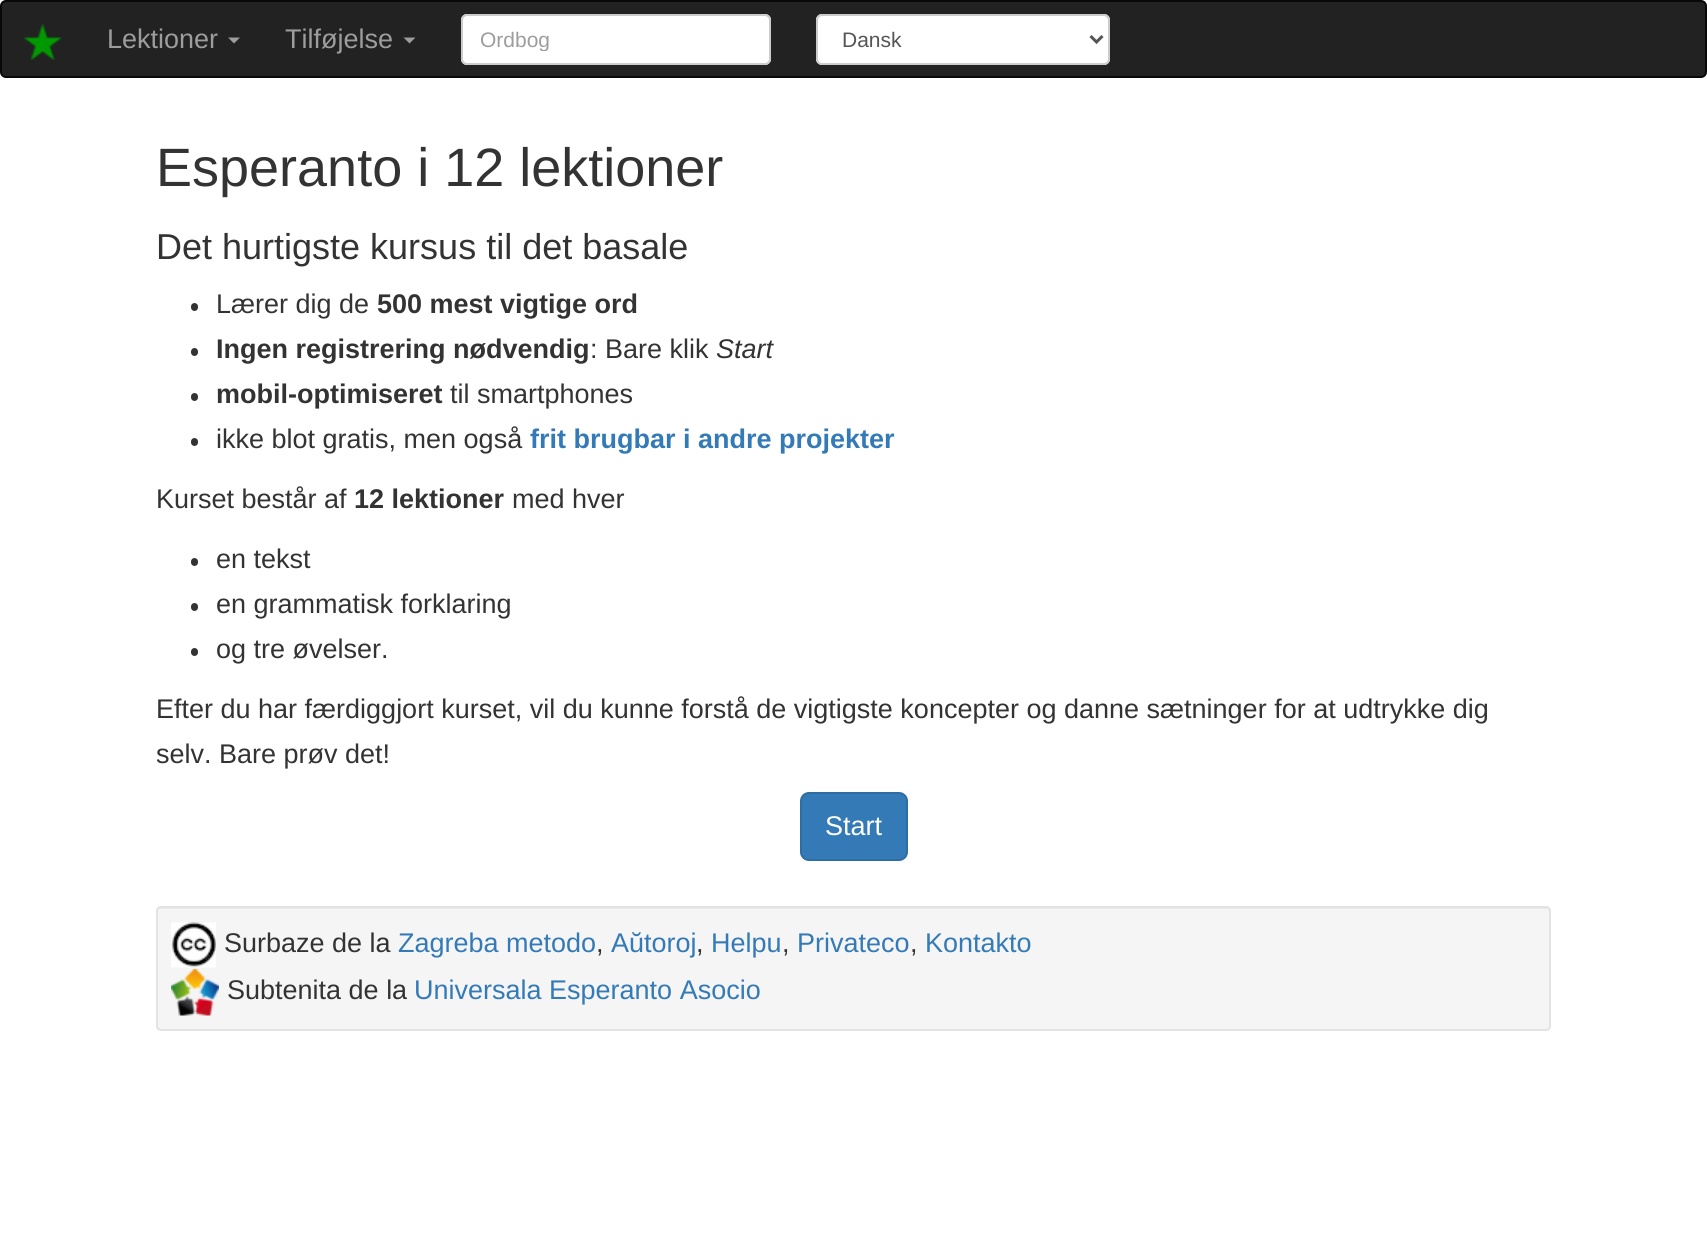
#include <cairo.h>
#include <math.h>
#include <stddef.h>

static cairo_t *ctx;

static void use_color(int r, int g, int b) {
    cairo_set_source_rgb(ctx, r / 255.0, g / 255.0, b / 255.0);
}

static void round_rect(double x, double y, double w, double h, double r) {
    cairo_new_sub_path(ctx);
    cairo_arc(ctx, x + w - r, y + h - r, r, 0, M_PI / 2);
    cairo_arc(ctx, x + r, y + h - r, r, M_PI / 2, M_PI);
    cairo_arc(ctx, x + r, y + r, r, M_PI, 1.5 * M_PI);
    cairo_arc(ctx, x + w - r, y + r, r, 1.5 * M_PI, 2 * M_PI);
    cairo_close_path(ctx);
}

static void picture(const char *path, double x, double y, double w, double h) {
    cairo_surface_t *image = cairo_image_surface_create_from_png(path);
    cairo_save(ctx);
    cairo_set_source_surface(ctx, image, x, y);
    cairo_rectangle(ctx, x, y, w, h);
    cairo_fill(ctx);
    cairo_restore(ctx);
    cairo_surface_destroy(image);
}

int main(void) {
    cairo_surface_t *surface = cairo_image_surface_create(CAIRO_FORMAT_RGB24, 1707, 1249);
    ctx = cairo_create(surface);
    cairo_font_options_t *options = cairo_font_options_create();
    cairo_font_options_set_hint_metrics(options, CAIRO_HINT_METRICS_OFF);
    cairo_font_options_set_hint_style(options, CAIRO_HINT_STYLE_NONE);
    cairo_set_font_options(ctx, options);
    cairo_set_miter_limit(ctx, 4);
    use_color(255, 255, 255);
    cairo_paint(ctx);
    use_color(34, 34, 34);
    round_rect(1, 1, 1705, 76, 5);
    cairo_fill_preserve(ctx);
    use_color(8, 8, 8);
    cairo_stroke(ctx);
    picture("img1.png", 24, 24, 38, 36);
    cairo_select_font_face(ctx, "Liberation Sans", CAIRO_FONT_SLANT_NORMAL, CAIRO_FONT_WEIGHT_NORMAL);
    cairo_set_font_size(ctx, 27);
    use_color(157, 157, 157);
    cairo_move_to(ctx, 107, 48);
    cairo_show_text(ctx, "Lektioner");
    cairo_new_path(ctx);
    cairo_move_to(ctx, 228, 37.5);
    cairo_line_to(ctx, 240, 37.5);
    cairo_line_to(ctx, 234, 43.5);
    cairo_close_path(ctx);
    cairo_fill(ctx);
    cairo_move_to(ctx, 285, 48);
    cairo_show_text(ctx, "Tilføjelse");
    cairo_new_path(ctx);
    cairo_move_to(ctx, 403.5, 37.5);
    cairo_line_to(ctx, 415.5, 37.5);
    cairo_line_to(ctx, 409.5, 43.5);
    cairo_close_path(ctx);
    cairo_fill(ctx);
    use_color(255, 255, 255);
    round_rect(461, 14, 310, 51, 6);
    cairo_fill(ctx);
    use_color(236, 236, 236);
    cairo_new_path(ctx);
    cairo_move_to(ctx, 466, 16);
    cairo_line_to(ctx, 765, 16);
    cairo_curve_to(ctx, 767, 16, 770, 19, 770, 21);
    cairo_curve_to(ctx, 770, 18, 768, 15, 765, 15);
    cairo_line_to(ctx, 467, 15);
    cairo_curve_to(ctx, 464, 15, 462, 18, 462, 21);
    cairo_curve_to(ctx, 462, 19, 464, 16, 466, 16);
    cairo_close_path(ctx);
    cairo_fill(ctx);
    round_rect(462, 15, 308, 49, 5);
    use_color(204, 204, 204);
    cairo_stroke(ctx);
    cairo_save(ctx);
    cairo_rectangle(ctx, 480, 27, 272, 24);
    cairo_clip(ctx);
    cairo_set_font_size(ctx, 21);
    use_color(157, 157, 157);
    cairo_move_to(ctx, 480, 47);
    cairo_show_text(ctx, "Ordbog");
    cairo_restore(ctx);
    use_color(255, 255, 255);
    round_rect(816, 14, 294, 51, 6);
    cairo_fill(ctx);
    use_color(236, 236, 236);
    cairo_new_path(ctx);
    cairo_move_to(ctx, 822, 16);
    cairo_line_to(ctx, 1104, 16);
    cairo_curve_to(ctx, 1106, 16, 1108, 19, 1108, 21);
    cairo_line_to(ctx, 1108, 61);
    cairo_curve_to(ctx, 1109, 60, 1109, 59, 1109, 58);
    cairo_line_to(ctx, 1109, 20);
    cairo_curve_to(ctx, 1109, 17, 1107, 15, 1104, 15);
    cairo_line_to(ctx, 823, 15);
    cairo_curve_to(ctx, 820, 15, 818, 17, 818, 20);
    cairo_line_to(ctx, 818, 21);
    cairo_curve_to(ctx, 818, 19, 820, 16, 822, 16);
    cairo_close_path(ctx);
    cairo_fill(ctx);
    round_rect(817, 15, 292, 49, 5);
    use_color(204, 204, 204);
    cairo_stroke(ctx);
    cairo_new_path(ctx);
    cairo_move_to(ctx, 1090.5, 36);
    cairo_line_to(ctx, 1096.5, 42);
    cairo_line_to(ctx, 1102.5, 36);
    use_color(85, 85, 85);
    cairo_set_line_width(ctx, 3);
    cairo_stroke(ctx);
    cairo_set_font_size(ctx, 21);
    cairo_move_to(ctx, 842, 47);
    cairo_show_text(ctx, "Dansk");
    cairo_set_font_size(ctx, 54);
    use_color(51, 51, 51);
    cairo_move_to(ctx, 156, 186);
    cairo_show_text(ctx, "Esperanto i 12 lektioner");
    cairo_set_font_size(ctx, 36);
    cairo_move_to(ctx, 156, 259);
    cairo_show_text(ctx, "Det hurtigste kursus til det basale");
    round_rect(191, 303, 7, 8, 3.5);
    cairo_fill(ctx);
    cairo_set_font_size(ctx, 27);
    cairo_move_to(ctx, 216, 313);
    cairo_show_text(ctx, "Lærer dig de");
    cairo_select_font_face(ctx, "Liberation Sans", CAIRO_FONT_SLANT_NORMAL, CAIRO_FONT_WEIGHT_BOLD);
    cairo_move_to(ctx, 377, 313);
    cairo_show_text(ctx, "500 mest vigtige ord");
    round_rect(191, 348, 7, 8, 3.5);
    cairo_fill(ctx);
    cairo_move_to(ctx, 216, 358);
    cairo_show_text(ctx, "Ingen registrering nødvendig");
    cairo_select_font_face(ctx, "Liberation Sans", CAIRO_FONT_SLANT_NORMAL, CAIRO_FONT_WEIGHT_NORMAL);
    cairo_move_to(ctx, 590, 358);
    cairo_show_text(ctx, ": Bare klik");
    cairo_select_font_face(ctx, "Liberation Sans", CAIRO_FONT_SLANT_ITALIC, CAIRO_FONT_WEIGHT_NORMAL);
    cairo_move_to(ctx, 716, 358);
    cairo_show_text(ctx, "Start");
    round_rect(191, 393, 7, 8, 3.5);
    cairo_fill(ctx);
    cairo_select_font_face(ctx, "Liberation Sans", CAIRO_FONT_SLANT_NORMAL, CAIRO_FONT_WEIGHT_BOLD);
    cairo_move_to(ctx, 216, 403);
    cairo_show_text(ctx, "mobil-optimiseret");
    cairo_select_font_face(ctx, "Liberation Sans", CAIRO_FONT_SLANT_NORMAL, CAIRO_FONT_WEIGHT_NORMAL);
    cairo_move_to(ctx, 450, 403);
    cairo_show_text(ctx, "til smartphones");
    round_rect(191, 438, 7, 8, 3.5);
    cairo_fill(ctx);
    cairo_move_to(ctx, 216, 448);
    cairo_show_text(ctx, "ikke blot gratis, men også");
    cairo_select_font_face(ctx, "Liberation Sans", CAIRO_FONT_SLANT_NORMAL, CAIRO_FONT_WEIGHT_BOLD);
    use_color(51, 122, 183);
    cairo_move_to(ctx, 530, 448);
    cairo_show_text(ctx, "frit brugbar i andre projekter");
    cairo_select_font_face(ctx, "Liberation Sans", CAIRO_FONT_SLANT_NORMAL, CAIRO_FONT_WEIGHT_NORMAL);
    use_color(51, 51, 51);
    cairo_move_to(ctx, 156, 508);
    cairo_show_text(ctx, "Kurset består af");
    cairo_select_font_face(ctx, "Liberation Sans", CAIRO_FONT_SLANT_NORMAL, CAIRO_FONT_WEIGHT_BOLD);
    cairo_move_to(ctx, 354, 508);
    cairo_show_text(ctx, "12 lektioner");
    cairo_select_font_face(ctx, "Liberation Sans", CAIRO_FONT_SLANT_NORMAL, CAIRO_FONT_WEIGHT_NORMAL);
    cairo_move_to(ctx, 512, 508);
    cairo_show_text(ctx, "med hver");
    round_rect(191, 558, 7, 8, 3.5);
    cairo_fill(ctx);
    cairo_move_to(ctx, 216, 568);
    cairo_show_text(ctx, "en tekst");
    round_rect(191, 603, 7, 8, 3.5);
    cairo_fill(ctx);
    cairo_move_to(ctx, 216, 613);
    cairo_show_text(ctx, "en grammatisk forklaring");
    round_rect(191, 648, 7, 8, 3.5);
    cairo_fill(ctx);
    cairo_move_to(ctx, 216, 658);
    cairo_show_text(ctx, "og tre øvelser.");
    cairo_move_to(ctx, 156, 718);
    cairo_show_text(ctx, "Efter du har færdiggjort kurset, vil du kunne forstå de vigtigste koncepter og danne sætninger for at udtrykke dig");
    cairo_move_to(ctx, 156, 763);
    cairo_show_text(ctx, "selv. Bare prøv det!");
    use_color(51, 122, 183);
    round_rect(801, 793, 106, 67, 8);
    cairo_fill_preserve(ctx);
    use_color(46, 109, 164);
    cairo_set_line_width(ctx, 2);
    cairo_stroke(ctx);
    use_color(255, 255, 255);
    cairo_move_to(ctx, 825, 835);
    cairo_show_text(ctx, "Start");
    use_color(245, 245, 245);
    round_rect(156, 906, 1395, 125, 5);
    cairo_fill(ctx);
    use_color(233, 233, 233);
    cairo_new_path(ctx);
    cairo_move_to(ctx, 160, 909);
    cairo_line_to(ctx, 1546, 909);
    cairo_curve_to(ctx, 1548, 909, 1550, 910, 1550, 912);
    cairo_line_to(ctx, 1550, 911);
    cairo_curve_to(ctx, 1550, 909, 1549, 908, 1547, 908);
    cairo_line_to(ctx, 161, 908);
    cairo_curve_to(ctx, 159, 908, 158, 909, 158, 911);
    cairo_line_to(ctx, 158, 912);
    cairo_curve_to(ctx, 158, 910, 159, 909, 160, 909);
    cairo_close_path(ctx);
    cairo_fill(ctx);
    round_rect(157, 907, 1393, 123, 4);
    use_color(227, 227, 227);
    cairo_stroke(ctx);
    picture("img2.png", 171, 922, 45, 46);
    use_color(51, 51, 51);
    cairo_move_to(ctx, 224, 952);
    cairo_show_text(ctx, "Surbaze de la");
    use_color(51, 122, 183);
    cairo_move_to(ctx, 398, 952);
    cairo_show_text(ctx, "Zagreba metodo");
    use_color(51, 51, 51);
    cairo_move_to(ctx, 596, 952);
    cairo_show_text(ctx, ",");
    use_color(51, 122, 183);
    cairo_move_to(ctx, 611, 952);
    cairo_show_text(ctx, "Aŭtoroj");
    use_color(51, 51, 51);
    cairo_move_to(ctx, 696, 952);
    cairo_show_text(ctx, ",");
    use_color(51, 122, 183);
    cairo_move_to(ctx, 711, 952);
    cairo_show_text(ctx, "Helpu");
    use_color(51, 51, 51);
    cairo_move_to(ctx, 782, 952);
    cairo_show_text(ctx, ",");
    use_color(51, 122, 183);
    cairo_move_to(ctx, 797, 952);
    cairo_show_text(ctx, "Privateco");
    use_color(51, 51, 51);
    cairo_move_to(ctx, 910, 952);
    cairo_show_text(ctx, ",");
    use_color(51, 122, 183);
    cairo_move_to(ctx, 925, 952);
    cairo_show_text(ctx, "Kontakto");
    picture("img3.png", 171, 969, 48, 47);
    use_color(51, 51, 51);
    cairo_move_to(ctx, 227, 999);
    cairo_show_text(ctx, "Subtenita de la");
    use_color(51, 122, 183);
    cairo_move_to(ctx, 414, 999);
    cairo_show_text(ctx, "Universala Esperanto Asocio");
    cairo_surface_write_to_png(surface, "result.png");
    cairo_font_options_destroy(options);
    cairo_destroy(ctx);
    cairo_surface_destroy(surface);
    return 0;
}
